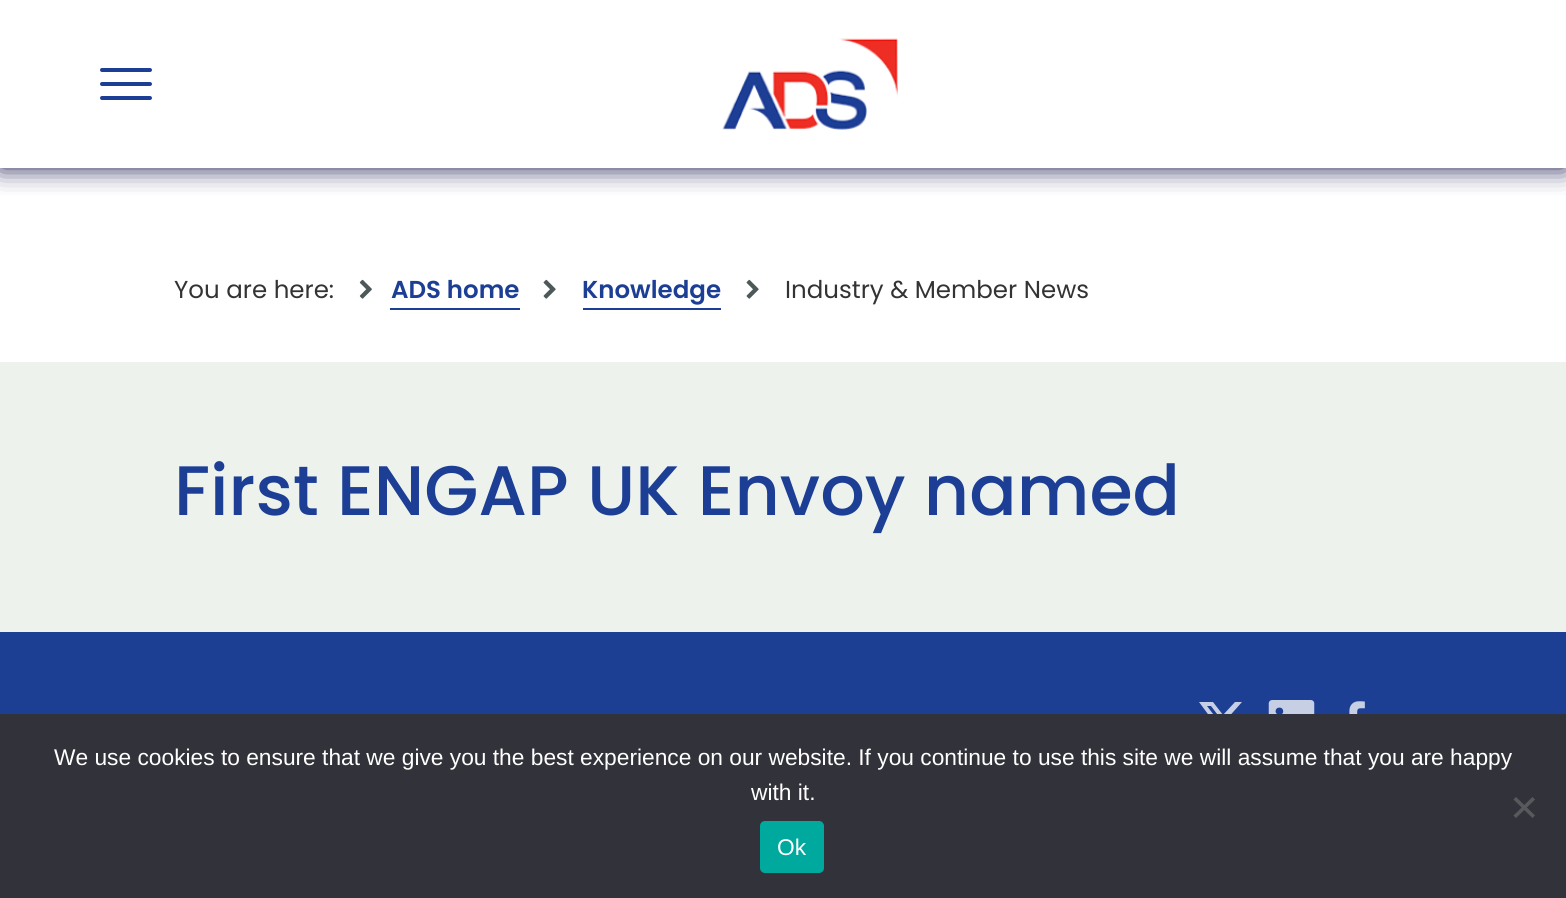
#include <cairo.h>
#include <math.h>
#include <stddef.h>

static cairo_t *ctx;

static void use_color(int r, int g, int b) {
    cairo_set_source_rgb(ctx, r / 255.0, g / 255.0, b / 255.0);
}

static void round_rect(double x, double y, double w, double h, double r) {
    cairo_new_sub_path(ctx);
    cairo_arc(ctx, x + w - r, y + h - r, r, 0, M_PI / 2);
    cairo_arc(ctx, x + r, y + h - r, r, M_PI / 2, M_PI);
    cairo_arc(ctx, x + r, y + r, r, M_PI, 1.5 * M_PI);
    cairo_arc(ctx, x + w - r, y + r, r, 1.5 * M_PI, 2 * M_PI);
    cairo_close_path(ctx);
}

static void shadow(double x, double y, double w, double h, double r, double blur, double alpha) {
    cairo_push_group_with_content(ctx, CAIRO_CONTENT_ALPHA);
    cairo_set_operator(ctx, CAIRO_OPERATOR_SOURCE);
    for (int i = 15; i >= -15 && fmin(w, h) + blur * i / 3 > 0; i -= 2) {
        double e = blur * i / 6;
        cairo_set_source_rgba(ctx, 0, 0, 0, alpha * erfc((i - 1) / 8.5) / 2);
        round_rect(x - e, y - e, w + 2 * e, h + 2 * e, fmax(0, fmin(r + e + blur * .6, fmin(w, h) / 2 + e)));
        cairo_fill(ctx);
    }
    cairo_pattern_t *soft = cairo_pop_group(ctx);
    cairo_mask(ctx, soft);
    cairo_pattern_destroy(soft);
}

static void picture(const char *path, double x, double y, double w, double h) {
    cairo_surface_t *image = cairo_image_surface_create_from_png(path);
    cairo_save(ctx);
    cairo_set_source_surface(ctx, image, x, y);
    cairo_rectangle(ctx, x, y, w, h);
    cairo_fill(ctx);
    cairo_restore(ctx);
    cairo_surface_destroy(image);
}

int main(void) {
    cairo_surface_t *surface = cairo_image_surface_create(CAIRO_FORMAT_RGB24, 1566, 898);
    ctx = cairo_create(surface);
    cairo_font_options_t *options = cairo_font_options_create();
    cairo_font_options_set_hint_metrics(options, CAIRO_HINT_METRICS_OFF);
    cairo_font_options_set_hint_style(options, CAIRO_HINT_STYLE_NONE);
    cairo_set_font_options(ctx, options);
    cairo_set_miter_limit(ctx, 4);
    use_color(255, 255, 255);
    cairo_paint(ctx);
    cairo_save(ctx);
    cairo_rectangle(ctx, 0, 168, 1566, 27);
    cairo_clip(ctx);
    use_color(26, 24, 78);
    shadow(0, 0, 1566, 168, 0, 13, 1);
    cairo_restore(ctx);
    use_color(28, 62, 149);
    round_rect(100, 68, 52, 4, 2);
    cairo_fill(ctx);
    round_rect(100, 82, 52, 4, 2);
    cairo_fill(ctx);
    round_rect(100, 96, 52, 4, 2);
    cairo_fill(ctx);
    picture("img1.png", 722, 38, 176, 92);
    cairo_select_font_face(ctx, "Poppins", CAIRO_FONT_SLANT_NORMAL, CAIRO_FONT_WEIGHT_NORMAL);
    cairo_set_font_size(ctx, 24.5);
    use_color(51, 51, 51);
    cairo_move_to(ctx, 174, 298);
    cairo_show_text(ctx, "You are here:");
    picture("img2.png", 359, 279, 13, 20);
    use_color(28, 62, 149);
    cairo_rectangle(ctx, 390, 308, 130, 2);
    cairo_fill(ctx);
    cairo_select_font_face(ctx, "Poppins SemiBold", CAIRO_FONT_SLANT_NORMAL, CAIRO_FONT_WEIGHT_NORMAL);
    cairo_move_to(ctx, 391, 298);
    cairo_show_text(ctx, "ADS home");
    picture("img3.png", 543, 279, 13, 20);
    cairo_rectangle(ctx, 583, 308, 138, 2);
    cairo_fill(ctx);
    cairo_move_to(ctx, 582, 298);
    cairo_show_text(ctx, "Knowledge");
    picture("img3.png", 746, 279, 13, 20);
    cairo_select_font_face(ctx, "Poppins", CAIRO_FONT_SLANT_NORMAL, CAIRO_FONT_WEIGHT_NORMAL);
    use_color(51, 51, 51);
    cairo_move_to(ctx, 785, 298);
    cairo_show_text(ctx, "Industry & Member News");
    use_color(237, 243, 236);
    cairo_rectangle(ctx, 0, 362, 1566, 270);
    cairo_fill(ctx);
    cairo_select_font_face(ctx, "Poppins Medium", CAIRO_FONT_SLANT_NORMAL, CAIRO_FONT_WEIGHT_NORMAL);
    cairo_set_font_size(ctx, 70);
    use_color(28, 62, 149);
    cairo_move_to(ctx, 174, 515);
    cairo_show_text(ctx, "First ENGAP UK Envoy named");
    use_color(28, 63, 148);
    cairo_rectangle(ctx, 0, 632, 1566, 82);
    cairo_fill(ctx);
    use_color(198, 207, 228);
    cairo_new_path(ctx);
    cairo_move_to(ctx, 1235, 702);
    cairo_line_to(ctx, 1242, 702);
    cairo_line_to(ctx, 1226, 720);
    cairo_line_to(ctx, 1244, 743);
    cairo_line_to(ctx, 1230, 743);
    cairo_line_to(ctx, 1219, 729);
    cairo_line_to(ctx, 1207, 743);
    cairo_line_to(ctx, 1200, 743);
    cairo_line_to(ctx, 1216, 725);
    cairo_line_to(ctx, 1199, 702);
    cairo_line_to(ctx, 1213, 702);
    cairo_line_to(ctx, 1223, 715);
    cairo_close_path(ctx);
    cairo_move_to(ctx, 1232, 739);
    cairo_line_to(ctx, 1236, 739);
    cairo_line_to(ctx, 1211, 706);
    cairo_line_to(ctx, 1207, 706);
    cairo_close_path(ctx);
    cairo_fill(ctx);
    picture("img4.png", 1268, 700, 47, 14);
    picture("img5.png", 1349, 701, 16, 13);
    use_color(50, 50, 58);
    cairo_rectangle(ctx, 0, 714, 1566, 184);
    cairo_fill(ctx);
    cairo_select_font_face(ctx, "Liberation Sans", CAIRO_FONT_SLANT_NORMAL, CAIRO_FONT_WEIGHT_NORMAL);
    cairo_set_font_size(ctx, 22.75);
    use_color(255, 255, 255);
    cairo_move_to(ctx, 54, 765);
    cairo_show_text(ctx, "We use cookies to ensure that we give you the best experience on our website. If you continue to use this site we will assume that you are happy");
    cairo_move_to(ctx, 751, 800);
    cairo_show_text(ctx, "with it.");
    use_color(89, 89, 93);
    cairo_new_path(ctx);
    cairo_move_to(ctx, 1532.5, 797);
    cairo_line_to(ctx, 1535, 799.5);
    cairo_line_to(ctx, 1516, 818);
    cairo_line_to(ctx, 1513.5, 815.5);
    cairo_close_path(ctx);
    cairo_fill(ctx);
    cairo_new_path(ctx);
    cairo_move_to(ctx, 1513.5, 799.5);
    cairo_line_to(ctx, 1516, 797);
    cairo_line_to(ctx, 1535, 815.5);
    cairo_line_to(ctx, 1532.5, 818);
    cairo_close_path(ctx);
    cairo_fill(ctx);
    use_color(0, 169, 157);
    round_rect(760, 821, 64, 52, 5);
    cairo_fill(ctx);
    use_color(255, 255, 255);
    cairo_move_to(ctx, 777, 855);
    cairo_show_text(ctx, "Ok");
    cairo_surface_write_to_png(surface, "result.png");
    cairo_font_options_destroy(options);
    cairo_destroy(ctx);
    cairo_surface_destroy(surface);
    return 0;
}
